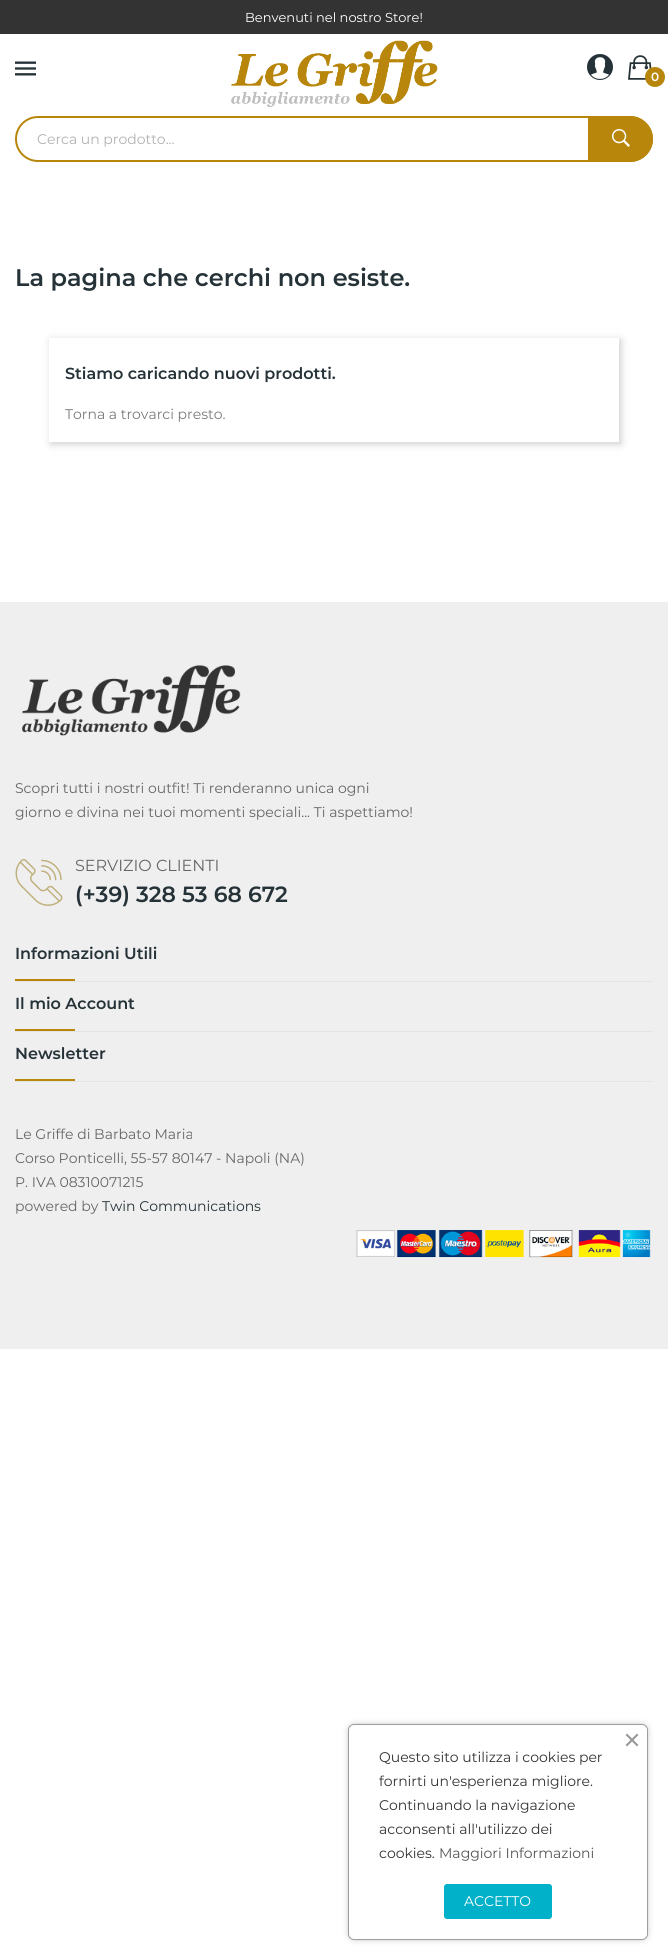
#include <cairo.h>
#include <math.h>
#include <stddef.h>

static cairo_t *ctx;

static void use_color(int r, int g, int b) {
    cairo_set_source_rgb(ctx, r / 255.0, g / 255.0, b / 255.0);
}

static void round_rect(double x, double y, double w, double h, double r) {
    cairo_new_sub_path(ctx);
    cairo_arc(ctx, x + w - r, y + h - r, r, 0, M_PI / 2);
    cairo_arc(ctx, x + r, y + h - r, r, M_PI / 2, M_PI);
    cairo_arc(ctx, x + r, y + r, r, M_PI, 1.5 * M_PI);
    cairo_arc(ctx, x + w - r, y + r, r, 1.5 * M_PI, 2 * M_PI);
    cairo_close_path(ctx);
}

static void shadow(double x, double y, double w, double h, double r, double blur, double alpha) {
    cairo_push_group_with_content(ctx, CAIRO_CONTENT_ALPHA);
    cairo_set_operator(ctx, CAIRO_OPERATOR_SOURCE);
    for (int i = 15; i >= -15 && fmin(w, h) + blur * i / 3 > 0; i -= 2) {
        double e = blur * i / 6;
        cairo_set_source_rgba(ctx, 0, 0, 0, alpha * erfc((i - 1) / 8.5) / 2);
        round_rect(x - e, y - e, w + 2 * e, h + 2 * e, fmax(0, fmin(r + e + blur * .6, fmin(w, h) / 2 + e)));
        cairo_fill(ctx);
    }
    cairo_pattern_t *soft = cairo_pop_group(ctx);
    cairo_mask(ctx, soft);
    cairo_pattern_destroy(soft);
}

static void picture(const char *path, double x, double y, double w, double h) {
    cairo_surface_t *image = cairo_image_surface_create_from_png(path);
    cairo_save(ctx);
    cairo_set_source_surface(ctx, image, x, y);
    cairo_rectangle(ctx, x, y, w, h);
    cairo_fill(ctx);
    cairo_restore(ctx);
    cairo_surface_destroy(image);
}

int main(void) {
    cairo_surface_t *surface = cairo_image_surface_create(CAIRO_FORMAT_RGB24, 668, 1960);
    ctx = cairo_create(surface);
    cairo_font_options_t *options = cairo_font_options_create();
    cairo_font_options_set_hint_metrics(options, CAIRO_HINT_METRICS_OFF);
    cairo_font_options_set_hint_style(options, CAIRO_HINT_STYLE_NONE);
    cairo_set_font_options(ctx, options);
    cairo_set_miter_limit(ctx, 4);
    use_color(255, 255, 255);
    cairo_paint(ctx);
    use_color(51, 51, 51);
    cairo_rectangle(ctx, 0, 0, 668, 34);
    cairo_fill(ctx);
    cairo_select_font_face(ctx, "Montserrat", CAIRO_FONT_SLANT_NORMAL, CAIRO_FONT_WEIGHT_NORMAL);
    cairo_set_font_size(ctx, 13);
    use_color(255, 255, 255);
    cairo_move_to(ctx, 245, 22);
    cairo_show_text(ctx, "Benvenuti nel nostro Store!");
    picture("img1.png", 15, 61, 21, 15);
    picture("img2.png", 231, 40, 207, 67);
    picture("img3.png", 587, 54, 26, 26);
    picture("img4.png", 628, 55, 24, 25);
    use_color(184, 134, 11);
    cairo_arc(ctx, 655, 77, 10, 0, 2 * M_PI);
    cairo_fill(ctx);
    cairo_select_font_face(ctx, "Montserrat SemiBold", CAIRO_FONT_SLANT_NORMAL, CAIRO_FONT_WEIGHT_NORMAL);
    cairo_set_font_size(ctx, 12);
    use_color(255, 255, 255);
    cairo_move_to(ctx, 651, 81);
    cairo_show_text(ctx, "0");
    round_rect(16, 117, 636, 44, 22);
    use_color(184, 134, 11);
    cairo_stroke(ctx);
    cairo_select_font_face(ctx, "Montserrat", CAIRO_FONT_SLANT_NORMAL, CAIRO_FONT_WEIGHT_NORMAL);
    cairo_set_font_size(ctx, 14);
    use_color(177, 177, 177);
    cairo_move_to(ctx, 37, 144);
    cairo_show_text(ctx, "Cerca un prodotto...");
    use_color(184, 134, 11);
    cairo_new_path(ctx);
    cairo_move_to(ctx, 588, 116);
    cairo_line_to(ctx, 630, 116);
    cairo_curve_to(ctx, 642.5, 116, 653, 126.5, 653, 139);
    cairo_curve_to(ctx, 653, 151.5, 642.5, 162, 630, 162);
    cairo_line_to(ctx, 588, 162);
    cairo_close_path(ctx);
    cairo_fill(ctx);
    picture("img5.png", 612, 129, 18, 18);
    cairo_select_font_face(ctx, "Montserrat SemiBold", CAIRO_FONT_SLANT_NORMAL, CAIRO_FONT_WEIGHT_NORMAL);
    cairo_set_font_size(ctx, 24);
    use_color(37, 50, 55);
    cairo_move_to(ctx, 15, 286);
    cairo_show_text(ctx, "La pagina che cerchi non esiste.");
    cairo_save(ctx);
    cairo_set_fill_rule(ctx, CAIRO_FILL_RULE_EVEN_ODD);
    cairo_new_path(ctx);
    cairo_move_to(ctx, 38, 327);
    cairo_line_to(ctx, 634, 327);
    cairo_line_to(ctx, 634, 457);
    cairo_line_to(ctx, 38, 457);
    cairo_close_path(ctx);
    cairo_move_to(ctx, 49, 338);
    cairo_line_to(ctx, 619, 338);
    cairo_line_to(ctx, 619, 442);
    cairo_line_to(ctx, 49, 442);
    cairo_close_path(ctx);
    cairo_clip(ctx);
    use_color(0, 0, 0);
    shadow(51, 340, 570, 104, 0, 4, 0.2);
    cairo_restore(ctx);
    cairo_set_font_size(ctx, 16);
    cairo_move_to(ctx, 65, 379);
    cairo_show_text(ctx, "Stiamo caricando nuovi prodotti.");
    cairo_select_font_face(ctx, "Montserrat", CAIRO_FONT_SLANT_NORMAL, CAIRO_FONT_WEIGHT_NORMAL);
    cairo_set_font_size(ctx, 14);
    use_color(122, 122, 122);
    cairo_move_to(ctx, 65, 419);
    cairo_show_text(ctx, "Torna a trovarci presto.");
    use_color(239, 239, 239);
    cairo_rectangle(ctx, 0, 602, 668, 747);
    cairo_fill(ctx);
    picture("img6.png", 22, 665, 219, 71);
    use_color(102, 102, 102);
    cairo_move_to(ctx, 15, 793);
    cairo_show_text(ctx, "Scopri tutti i nostri outfit! Ti renderanno unica ogni");
    cairo_move_to(ctx, 15, 817);
    cairo_show_text(ctx, "giorno e divina nei tuoi momenti speciali... Ti aspettiamo!");
    picture("img7.png", 15, 859, 48, 47);
    cairo_set_font_size(ctx, 16);
    cairo_move_to(ctx, 75, 871);
    cairo_show_text(ctx, "SERVIZIO CLIENTI");
    cairo_select_font_face(ctx, "Montserrat SemiBold", CAIRO_FONT_SLANT_NORMAL, CAIRO_FONT_WEIGHT_NORMAL);
    cairo_set_font_size(ctx, 22);
    use_color(37, 50, 55);
    cairo_move_to(ctx, 75, 902);
    cairo_show_text(ctx, "(+39) 328 53 68 672");
    use_color(227, 227, 227);
    cairo_rectangle(ctx, 15, 981, 638, 1);
    cairo_fill(ctx);
    cairo_set_font_size(ctx, 16);
    use_color(37, 50, 55);
    cairo_move_to(ctx, 15, 959);
    cairo_show_text(ctx, "Informazioni Utili");
    use_color(184, 134, 11);
    cairo_rectangle(ctx, 15, 979, 60, 2);
    cairo_fill(ctx);
    use_color(227, 227, 227);
    cairo_rectangle(ctx, 15, 1031, 638, 1);
    cairo_fill(ctx);
    use_color(37, 50, 55);
    cairo_move_to(ctx, 15, 1009);
    cairo_show_text(ctx, "Il mio Account");
    use_color(184, 134, 11);
    cairo_rectangle(ctx, 15, 1029, 60, 2);
    cairo_fill(ctx);
    use_color(227, 227, 227);
    cairo_rectangle(ctx, 15, 1081, 638, 1);
    cairo_fill(ctx);
    use_color(37, 50, 55);
    cairo_move_to(ctx, 15, 1059);
    cairo_show_text(ctx, "Newsletter");
    use_color(184, 134, 11);
    cairo_rectangle(ctx, 15, 1079, 60, 2);
    cairo_fill(ctx);
    cairo_select_font_face(ctx, "Montserrat", CAIRO_FONT_SLANT_NORMAL, CAIRO_FONT_WEIGHT_NORMAL);
    cairo_set_font_size(ctx, 14);
    use_color(102, 102, 102);
    cairo_move_to(ctx, 15, 1139);
    cairo_show_text(ctx, "Le Griffe di Barbato Maria");
    cairo_move_to(ctx, 15, 1163);
    cairo_show_text(ctx, "Corso Ponticelli, 55-57 80147 - Napoli (NA)");
    cairo_move_to(ctx, 15, 1187);
    cairo_show_text(ctx, "P. IVA 08310071215");
    cairo_move_to(ctx, 15, 1211);
    cairo_show_text(ctx, "powered by");
    use_color(37, 50, 55);
    cairo_move_to(ctx, 102, 1211);
    cairo_show_text(ctx, "Twin Communications");
    picture("img8.png", 356, 1229, 295, 29);
    use_color(158, 158, 158);
    shadow(350, 1726, 296, 212, 4, 3.5, 1);
    use_color(255, 255, 255);
    round_rect(348.5, 1724.5, 299, 215, 5.5);
    cairo_fill_preserve(ctx);
    use_color(158, 158, 158);
    cairo_set_line_width(ctx, 1);
    cairo_stroke(ctx);
    use_color(153, 153, 153);
    cairo_new_path(ctx);
    cairo_move_to(ctx, 625.5, 1745);
    cairo_line_to(ctx, 637, 1733.5);
    cairo_line_to(ctx, 638.5, 1735);
    cairo_line_to(ctx, 627, 1746.5);
    cairo_close_path(ctx);
    cairo_fill(ctx);
    cairo_new_path(ctx);
    cairo_move_to(ctx, 627, 1733.5);
    cairo_line_to(ctx, 638.5, 1745);
    cairo_line_to(ctx, 637, 1746.5);
    cairo_line_to(ctx, 625.5, 1735);
    cairo_close_path(ctx);
    cairo_fill(ctx);
    use_color(51, 51, 51);
    cairo_move_to(ctx, 379, 1762);
    cairo_show_text(ctx, "Questo sito utilizza i cookies per");
    cairo_move_to(ctx, 379, 1786);
    cairo_show_text(ctx, "fornirti un'esperienza migliore.");
    cairo_move_to(ctx, 379, 1810);
    cairo_show_text(ctx, "Continuando la navigazione");
    cairo_move_to(ctx, 379, 1834);
    cairo_show_text(ctx, "acconsenti all'utilizzo dei");
    cairo_move_to(ctx, 379, 1858);
    cairo_show_text(ctx, "cookies.");
    use_color(85, 85, 85);
    cairo_move_to(ctx, 439, 1858);
    cairo_show_text(ctx, "Maggiori Informazioni");
    use_color(0, 177, 201);
    round_rect(444, 1884, 108, 35, 3);
    cairo_fill(ctx);
    use_color(255, 255, 255);
    cairo_move_to(ctx, 464, 1906);
    cairo_show_text(ctx, "ACCETTO");
    cairo_surface_write_to_png(surface, "result.png");
    cairo_font_options_destroy(options);
    cairo_destroy(ctx);
    cairo_surface_destroy(surface);
    return 0;
}
